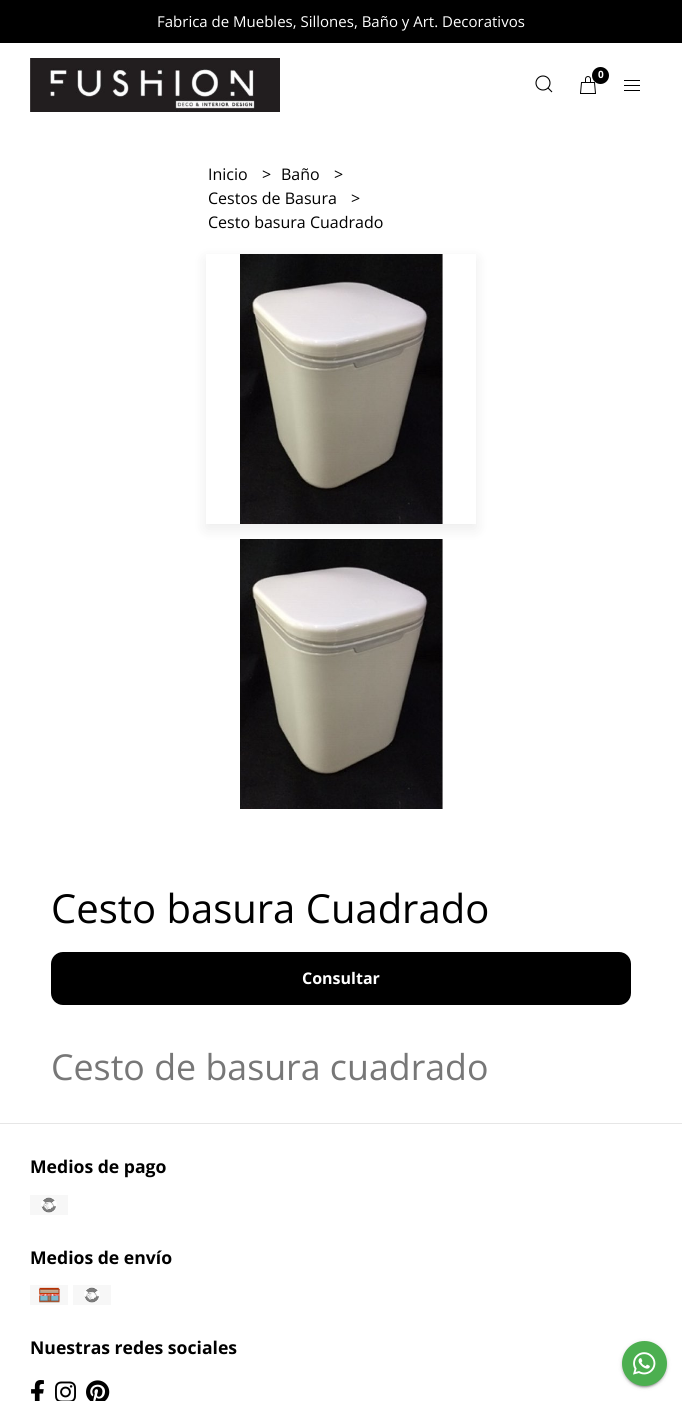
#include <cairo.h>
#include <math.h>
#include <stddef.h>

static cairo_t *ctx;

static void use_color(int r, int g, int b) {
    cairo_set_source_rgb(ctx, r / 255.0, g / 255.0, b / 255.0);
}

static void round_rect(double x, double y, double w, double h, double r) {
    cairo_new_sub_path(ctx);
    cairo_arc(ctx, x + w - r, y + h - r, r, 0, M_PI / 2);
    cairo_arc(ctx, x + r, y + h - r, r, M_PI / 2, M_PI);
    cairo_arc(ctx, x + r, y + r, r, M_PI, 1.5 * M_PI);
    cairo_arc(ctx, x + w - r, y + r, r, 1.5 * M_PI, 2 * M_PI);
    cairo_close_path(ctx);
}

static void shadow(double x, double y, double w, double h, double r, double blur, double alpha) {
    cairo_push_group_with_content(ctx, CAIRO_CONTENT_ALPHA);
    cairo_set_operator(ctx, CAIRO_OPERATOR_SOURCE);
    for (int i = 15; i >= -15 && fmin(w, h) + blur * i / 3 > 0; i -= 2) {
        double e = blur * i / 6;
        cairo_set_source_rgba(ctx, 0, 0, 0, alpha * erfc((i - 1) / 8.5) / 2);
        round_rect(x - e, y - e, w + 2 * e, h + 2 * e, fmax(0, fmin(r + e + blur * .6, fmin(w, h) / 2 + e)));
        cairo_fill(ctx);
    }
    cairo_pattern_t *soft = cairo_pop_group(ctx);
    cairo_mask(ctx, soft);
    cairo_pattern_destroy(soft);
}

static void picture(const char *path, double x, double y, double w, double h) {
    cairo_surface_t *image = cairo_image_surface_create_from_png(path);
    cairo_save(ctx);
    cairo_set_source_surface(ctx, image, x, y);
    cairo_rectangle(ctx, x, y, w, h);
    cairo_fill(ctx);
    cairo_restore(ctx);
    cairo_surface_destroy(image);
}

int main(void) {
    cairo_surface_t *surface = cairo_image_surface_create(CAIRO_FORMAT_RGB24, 682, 1401);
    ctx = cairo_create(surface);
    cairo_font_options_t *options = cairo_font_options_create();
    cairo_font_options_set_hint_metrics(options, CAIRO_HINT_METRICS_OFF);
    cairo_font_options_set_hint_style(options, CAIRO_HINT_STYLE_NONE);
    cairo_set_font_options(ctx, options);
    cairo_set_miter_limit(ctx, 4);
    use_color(255, 255, 255);
    cairo_paint(ctx);
    use_color(0, 0, 0);
    cairo_rectangle(ctx, 0, 0, 682, 43);
    cairo_fill(ctx);
    cairo_select_font_face(ctx, "Open Sans", CAIRO_FONT_SLANT_NORMAL, CAIRO_FONT_WEIGHT_NORMAL);
    cairo_set_font_size(ctx, 15);
    use_color(255, 255, 255);
    cairo_move_to(ctx, 157, 27);
    cairo_show_text(ctx, "Fabrica de Muebles, Sillones, Baño y Art. Decorativos");
    picture("img1.png", 30, 58, 250, 54);
    cairo_arc(ctx, 543, 83, 7, 0, 2 * M_PI);
    use_color(0, 0, 0);
    cairo_set_line_width(ctx, 1.1);
    cairo_stroke(ctx);
    cairo_new_path(ctx);
    cairo_move_to(ctx, 548, 88);
    cairo_line_to(ctx, 552, 92);
    cairo_close_path(ctx);
    cairo_stroke(ctx);
    picture("img2.png", 580, 76, 16, 18);
    cairo_arc(ctx, 600.5, 75.5, 8.5, 0, 2 * M_PI);
    cairo_fill(ctx);
    cairo_select_font_face(ctx, "Open Sans", CAIRO_FONT_SLANT_NORMAL, CAIRO_FONT_WEIGHT_BOLD);
    cairo_set_font_size(ctx, 10);
    use_color(255, 255, 255);
    cairo_move_to(ctx, 598, 78);
    cairo_show_text(ctx, "0");
    use_color(0, 0, 0);
    cairo_rectangle(ctx, 624, 80, 16, 1);
    cairo_fill(ctx);
    cairo_rectangle(ctx, 624, 85, 16, 1);
    cairo_fill(ctx);
    cairo_rectangle(ctx, 624, 90, 16, 1);
    cairo_fill(ctx);
    cairo_select_font_face(ctx, "Open Sans", CAIRO_FONT_SLANT_NORMAL, CAIRO_FONT_WEIGHT_NORMAL);
    cairo_set_font_size(ctx, 16);
    cairo_move_to(ctx, 208, 180);
    cairo_show_text(ctx, "Inicio");
    cairo_move_to(ctx, 262, 180);
    cairo_show_text(ctx, ">");
    cairo_move_to(ctx, 281, 180);
    cairo_show_text(ctx, "Baño");
    cairo_move_to(ctx, 334, 180);
    cairo_show_text(ctx, ">");
    cairo_move_to(ctx, 208, 204);
    cairo_show_text(ctx, "Cestos de Basura");
    cairo_move_to(ctx, 351, 204);
    cairo_show_text(ctx, ">");
    cairo_move_to(ctx, 208, 228);
    cairo_show_text(ctx, "Cesto basura Cuadrado");
    cairo_save(ctx);
    cairo_set_fill_rule(ctx, CAIRO_FILL_RULE_EVEN_ODD);
    cairo_new_path(ctx);
    cairo_move_to(ctx, 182, 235);
    cairo_line_to(ctx, 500, 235);
    cairo_line_to(ctx, 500, 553);
    cairo_line_to(ctx, 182, 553);
    cairo_close_path(ctx);
    cairo_move_to(ctx, 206, 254);
    cairo_line_to(ctx, 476, 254);
    cairo_line_to(ctx, 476, 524);
    cairo_line_to(ctx, 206, 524);
    cairo_close_path(ctx);
    cairo_clip(ctx);
    use_color(0, 0, 0);
    shadow(206, 259, 270, 270, 0, 7.5, 0.08);
    cairo_restore(ctx);
    picture("img3.png", 240, 254, 203, 270);
    picture("img3.png", 240, 539, 203, 270);
    cairo_set_font_size(ctx, 40);
    cairo_move_to(ctx, 51, 923);
    cairo_show_text(ctx, "Cesto basura Cuadrado");
    round_rect(51, 952, 580, 53, 12);
    cairo_fill(ctx);
    cairo_select_font_face(ctx, "Open Sans", CAIRO_FONT_SLANT_NORMAL, CAIRO_FONT_WEIGHT_BOLD);
    cairo_set_font_size(ctx, 16);
    use_color(255, 255, 255);
    cairo_move_to(ctx, 302, 984);
    cairo_show_text(ctx, "Consultar");
    cairo_select_font_face(ctx, "Open Sans", CAIRO_FONT_SLANT_NORMAL, CAIRO_FONT_WEIGHT_NORMAL);
    cairo_set_font_size(ctx, 35.75);
    use_color(119, 119, 119);
    cairo_move_to(ctx, 51, 1080);
    cairo_show_text(ctx, "Cesto de basura cuadrado");
    use_color(230, 230, 230);
    cairo_rectangle(ctx, 0, 1123, 682, 1);
    cairo_fill(ctx);
    cairo_select_font_face(ctx, "Open Sans", CAIRO_FONT_SLANT_NORMAL, CAIRO_FONT_WEIGHT_BOLD);
    cairo_set_font_size(ctx, 17.6);
    use_color(0, 0, 0);
    cairo_move_to(ctx, 30, 1173);
    cairo_show_text(ctx, "Medios de pago");
    picture("img4.png", 30, 1195, 38, 20);
    cairo_move_to(ctx, 30, 1264);
    cairo_show_text(ctx, "Medios de envío");
    picture("img5.png", 30, 1285, 38, 20);
    picture("img4.png", 73, 1285, 38, 20);
    cairo_move_to(ctx, 30, 1354);
    cairo_show_text(ctx, "Nuestras redes sociales");
    picture("img6.png", 31, 1380, 13, 21);
    picture("img7.png", 55, 1381, 21, 20);
    picture("img8.png", 86, 1380, 24, 21);
    use_color(0, 0, 0);
    shadow(624, 1346, 41, 41, 20.5, 0.5, 0.2);
    shadow(622, 1342, 45, 45, 22.5, 2.5, 0.12);
    shadow(622, 1343, 45, 45, 22.5, 1, 0.14);
    use_color(76, 175, 80);
    cairo_arc(ctx, 644.5, 1363.5, 22.5, 0, 2 * M_PI);
    cairo_fill(ctx);
    picture("img9.png", 633, 1352, 23, 23);
    cairo_surface_write_to_png(surface, "result.png");
    cairo_font_options_destroy(options);
    cairo_destroy(ctx);
    cairo_surface_destroy(surface);
    return 0;
}
